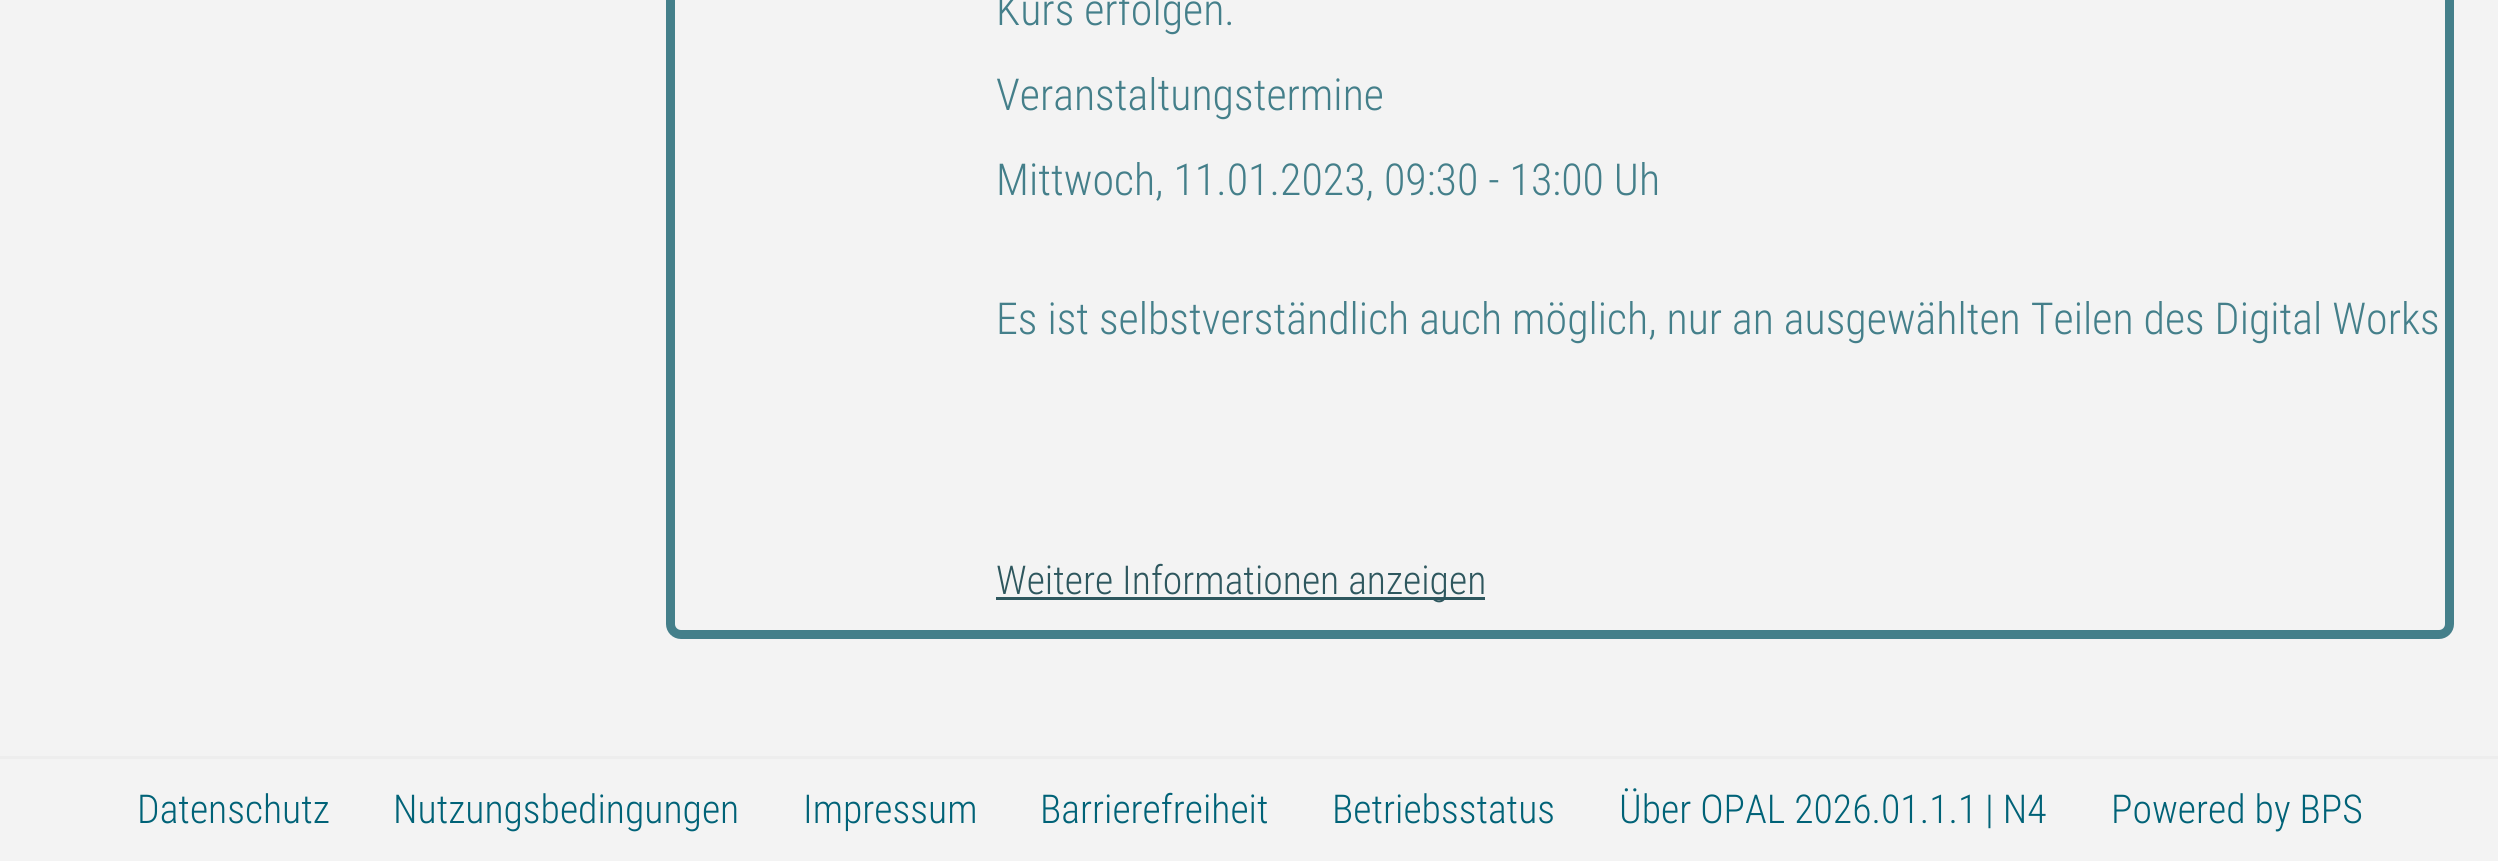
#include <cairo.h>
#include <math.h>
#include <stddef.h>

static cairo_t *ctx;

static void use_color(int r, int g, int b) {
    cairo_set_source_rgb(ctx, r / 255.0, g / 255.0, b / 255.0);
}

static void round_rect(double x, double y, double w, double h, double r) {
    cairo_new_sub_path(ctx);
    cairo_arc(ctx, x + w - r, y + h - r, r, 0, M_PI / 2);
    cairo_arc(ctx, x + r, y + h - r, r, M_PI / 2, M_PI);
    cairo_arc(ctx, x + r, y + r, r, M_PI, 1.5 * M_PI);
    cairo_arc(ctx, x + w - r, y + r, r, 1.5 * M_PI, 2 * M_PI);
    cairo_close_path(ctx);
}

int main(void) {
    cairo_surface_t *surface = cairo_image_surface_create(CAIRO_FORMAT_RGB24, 2498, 864);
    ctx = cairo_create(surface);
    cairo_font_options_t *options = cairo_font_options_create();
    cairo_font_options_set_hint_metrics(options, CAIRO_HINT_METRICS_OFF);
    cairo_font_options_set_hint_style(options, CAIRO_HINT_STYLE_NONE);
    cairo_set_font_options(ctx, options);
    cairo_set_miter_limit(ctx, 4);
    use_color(255, 255, 255);
    cairo_paint(ctx);
    use_color(243, 243, 243);
    cairo_rectangle(ctx, 0, 0, 2498, 861);
    cairo_fill(ctx);
    round_rect(670.5, -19.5, 1779, 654, 10.5);
    use_color(68, 127, 138);
    cairo_set_line_width(ctx, 9);
    cairo_stroke(ctx);
    cairo_select_font_face(ctx, "Roboto Condensed Light", CAIRO_FONT_SLANT_NORMAL, CAIRO_FONT_WEIGHT_NORMAL);
    cairo_set_font_size(ctx, 44);
    cairo_move_to(ctx, 996, 25);
    cairo_show_text(ctx, "Kurs erfolgen.");
    cairo_move_to(ctx, 996, 110);
    cairo_show_text(ctx, "Veranstaltungstermine");
    cairo_move_to(ctx, 996, 195);
    cairo_show_text(ctx, "Mittwoch, 11.01.2023, 09:30 - 13:00 Uh");
    cairo_move_to(ctx, 996, 334);
    cairo_show_text(ctx, "Es ist selbstverständlich auch möglich, nur an ausgewählten Teilen des Digital Works");
    use_color(46, 87, 94);
    cairo_rectangle(ctx, 996, 597, 489, 3);
    cairo_fill(ctx);
    cairo_set_font_size(ctx, 39.75);
    cairo_move_to(ctx, 996, 594);
    cairo_show_text(ctx, "Weitere Informationen anzeigen");
    use_color(237, 237, 237);
    cairo_rectangle(ctx, 0, 756, 2498, 3);
    cairo_fill(ctx);
    use_color(0, 98, 119);
    cairo_move_to(ctx, 137, 823);
    cairo_show_text(ctx, "Datenschutz");
    cairo_move_to(ctx, 393, 823);
    cairo_show_text(ctx, "Nutzungsbedingungen");
    cairo_move_to(ctx, 803, 823);
    cairo_show_text(ctx, "Impressum");
    cairo_move_to(ctx, 1040, 823);
    cairo_show_text(ctx, "Barrierefreiheit");
    cairo_move_to(ctx, 1332, 823);
    cairo_show_text(ctx, "Betriebsstatus");
    cairo_move_to(ctx, 1619, 823);
    cairo_show_text(ctx, "Über OPAL 2026.01.1.1");
    cairo_move_to(ctx, 1985, 823);
    cairo_show_text(ctx, "| N4");
    cairo_move_to(ctx, 2111, 823);
    cairo_show_text(ctx, "Powered by BPS");
    cairo_surface_write_to_png(surface, "result.png");
    cairo_font_options_destroy(options);
    cairo_destroy(ctx);
    cairo_surface_destroy(surface);
    return 0;
}
